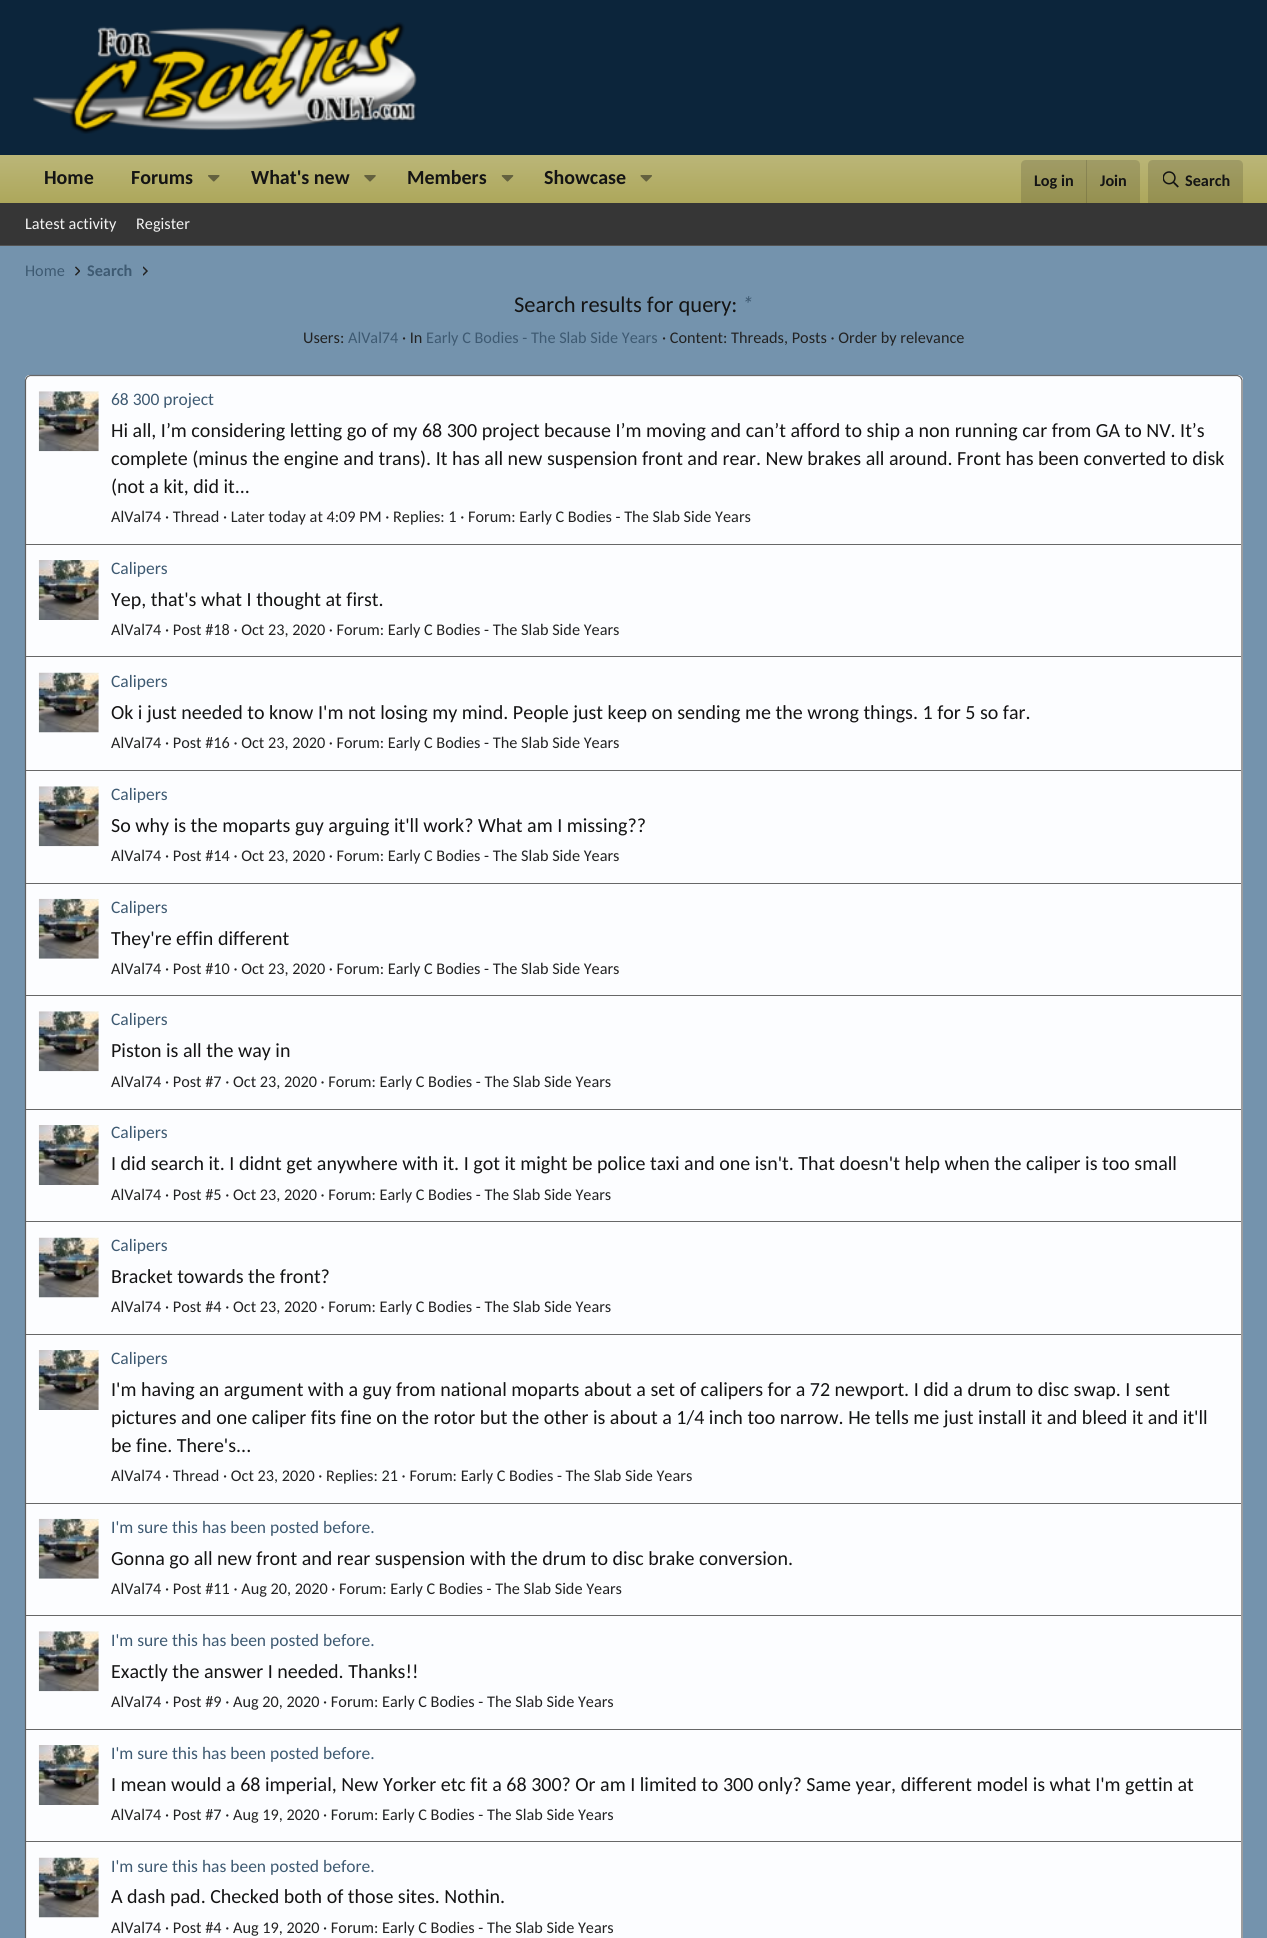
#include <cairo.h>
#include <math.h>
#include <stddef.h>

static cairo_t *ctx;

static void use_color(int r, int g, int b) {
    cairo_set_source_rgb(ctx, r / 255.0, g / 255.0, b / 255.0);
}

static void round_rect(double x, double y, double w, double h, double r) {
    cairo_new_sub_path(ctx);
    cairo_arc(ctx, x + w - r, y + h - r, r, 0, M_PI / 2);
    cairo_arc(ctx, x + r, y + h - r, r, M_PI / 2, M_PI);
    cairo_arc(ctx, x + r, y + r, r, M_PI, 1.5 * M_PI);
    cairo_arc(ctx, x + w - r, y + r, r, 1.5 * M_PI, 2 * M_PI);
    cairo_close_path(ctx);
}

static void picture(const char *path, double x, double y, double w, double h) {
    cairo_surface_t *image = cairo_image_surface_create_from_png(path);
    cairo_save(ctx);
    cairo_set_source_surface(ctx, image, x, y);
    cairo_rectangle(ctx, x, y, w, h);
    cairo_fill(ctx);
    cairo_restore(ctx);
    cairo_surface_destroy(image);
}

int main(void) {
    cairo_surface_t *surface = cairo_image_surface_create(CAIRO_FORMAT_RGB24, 1267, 1938);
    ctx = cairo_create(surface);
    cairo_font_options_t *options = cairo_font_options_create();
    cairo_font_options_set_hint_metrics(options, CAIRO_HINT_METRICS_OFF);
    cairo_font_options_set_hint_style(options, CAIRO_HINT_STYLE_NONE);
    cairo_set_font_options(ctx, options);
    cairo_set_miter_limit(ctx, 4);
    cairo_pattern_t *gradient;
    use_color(116, 147, 173);
    cairo_paint(ctx);
    use_color(12, 37, 59);
    cairo_rectangle(ctx, 0, 0, 1267, 155);
    cairo_fill(ctx);
    picture("img1.png", 33, 22, 384, 112);
    gradient = cairo_pattern_create_linear(634, 155, 634, 203);
    cairo_pattern_add_color_stop_rgba(gradient, 0, 0.733, 0.714, 0.471, 1);
    cairo_pattern_add_color_stop_rgba(gradient, 1, 0.678, 0.655, 0.357, 1);
    cairo_set_source(ctx, gradient);
    cairo_pattern_destroy(gradient);
    cairo_rectangle(ctx, 0, 155, 1267, 48);
    cairo_fill(ctx);
    cairo_select_font_face(ctx, "Carlito", CAIRO_FONT_SLANT_NORMAL, CAIRO_FONT_WEIGHT_BOLD);
    cairo_set_font_size(ctx, 20);
    use_color(20, 20, 20);
    cairo_move_to(ctx, 44, 184);
    cairo_show_text(ctx, "Home");
    cairo_move_to(ctx, 131, 184);
    cairo_show_text(ctx, "Forums");
    picture("img2.png", 208, 175, 12, 7);
    cairo_move_to(ctx, 251, 184);
    cairo_show_text(ctx, "What's new");
    picture("img3.png", 364, 175, 12, 7);
    cairo_move_to(ctx, 407, 184);
    cairo_show_text(ctx, "Members");
    picture("img4.png", 501, 175, 13, 7);
    cairo_move_to(ctx, 544, 184);
    cairo_show_text(ctx, "Showcase");
    picture("img5.png", 640, 175, 12, 7);
    cairo_set_source_rgba(ctx, 0.078, 0.078, 0.078, 0.15);
    cairo_new_path(ctx);
    cairo_move_to(ctx, 1026, 160);
    cairo_line_to(ctx, 1135, 160);
    cairo_curve_to(ctx, 1138, 160, 1140, 162, 1140, 165);
    cairo_line_to(ctx, 1140, 203);
    cairo_line_to(ctx, 1021, 203);
    cairo_line_to(ctx, 1021, 165);
    cairo_curve_to(ctx, 1021, 162, 1023, 160, 1026, 160);
    cairo_close_path(ctx);
    cairo_fill(ctx);
    cairo_set_font_size(ctx, 16.25);
    use_color(20, 20, 20);
    cairo_move_to(ctx, 1034, 186);
    cairo_show_text(ctx, "Log in");
    cairo_set_source_rgba(ctx, 0.078, 0.078, 0.078, 0.15);
    cairo_rectangle(ctx, 1086, 160, 1, 43);
    cairo_fill(ctx);
    use_color(20, 20, 20);
    cairo_move_to(ctx, 1100, 186);
    cairo_show_text(ctx, "Join");
    cairo_set_source_rgba(ctx, 0.078, 0.078, 0.078, 0.15);
    cairo_new_path(ctx);
    cairo_move_to(ctx, 1153, 160);
    cairo_line_to(ctx, 1238, 160);
    cairo_curve_to(ctx, 1241, 160, 1243, 162, 1243, 165);
    cairo_line_to(ctx, 1243, 203);
    cairo_line_to(ctx, 1148, 203);
    cairo_line_to(ctx, 1148, 165);
    cairo_curve_to(ctx, 1148, 162, 1150, 160, 1153, 160);
    cairo_close_path(ctx);
    cairo_fill(ctx);
    picture("img6.png", 1163, 171, 16, 17);
    use_color(20, 20, 20);
    cairo_move_to(ctx, 1185, 186);
    cairo_show_text(ctx, "Search");
    use_color(54, 54, 54);
    cairo_rectangle(ctx, 0, 203, 1267, 42);
    cairo_fill(ctx);
    use_color(83, 83, 83);
    cairo_rectangle(ctx, 0, 245, 1267, 1);
    cairo_fill(ctx);
    cairo_select_font_face(ctx, "Carlito", CAIRO_FONT_SLANT_NORMAL, CAIRO_FONT_WEIGHT_NORMAL);
    use_color(243, 243, 243);
    cairo_move_to(ctx, 25, 229);
    cairo_show_text(ctx, "Latest activity");
    cairo_move_to(ctx, 136, 229);
    cairo_show_text(ctx, "Register");
    use_color(62, 90, 114);
    cairo_move_to(ctx, 25, 276);
    cairo_show_text(ctx, "Home");
    picture("img7.png", 75, 266, 5, 10);
    cairo_select_font_face(ctx, "Carlito", CAIRO_FONT_SLANT_NORMAL, CAIRO_FONT_WEIGHT_BOLD);
    cairo_move_to(ctx, 87, 276);
    cairo_show_text(ctx, "Search");
    picture("img8.png", 143, 266, 5, 10);
    cairo_select_font_face(ctx, "Carlito", CAIRO_FONT_SLANT_NORMAL, CAIRO_FONT_WEIGHT_NORMAL);
    cairo_set_font_size(ctx, 22.5);
    use_color(20, 20, 20);
    cairo_move_to(ctx, 514, 312);
    cairo_show_text(ctx, "Search results for query:");
    cairo_select_font_face(ctx, "Carlito", CAIRO_FONT_SLANT_ITALIC, CAIRO_FONT_WEIGHT_NORMAL);
    use_color(62, 90, 114);
    cairo_move_to(ctx, 742, 312);
    cairo_show_text(ctx, "*");
    cairo_select_font_face(ctx, "Carlito", CAIRO_FONT_SLANT_NORMAL, CAIRO_FONT_WEIGHT_NORMAL);
    cairo_set_font_size(ctx, 16.25);
    use_color(34, 34, 34);
    cairo_move_to(ctx, 303, 343);
    cairo_show_text(ctx, "Users:");
    use_color(62, 90, 114);
    cairo_move_to(ctx, 348, 343);
    cairo_show_text(ctx, "AlVal74");
    use_color(34, 34, 34);
    cairo_move_to(ctx, 402, 343);
    cairo_show_text(ctx, "· In");
    use_color(62, 90, 114);
    cairo_move_to(ctx, 426, 343);
    cairo_show_text(ctx, "Early C Bodies - The Slab Side Years");
    use_color(34, 34, 34);
    cairo_move_to(ctx, 662, 343);
    cairo_show_text(ctx, "· Content: Threads, Posts · Order by relevance");
    use_color(252, 253, 255);
    round_rect(25, 375, 1218, 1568, 5);
    cairo_fill(ctx);
    cairo_new_path(ctx);
    cairo_move_to(ctx, 27, 377);
    cairo_line_to(ctx, 30, 375.5);
    cairo_line_to(ctx, 1237.5, 375.5);
    cairo_line_to(ctx, 1240.5, 377);
    use_color(103, 103, 103);
    cairo_set_line_width(ctx, 1.2);
    cairo_stroke(ctx);
    cairo_new_path(ctx);
    cairo_move_to(ctx, 1240.5, 377);
    cairo_line_to(ctx, 1242, 380);
    cairo_line_to(ctx, 1242, 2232.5);
    cairo_line_to(ctx, 1240.5, 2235.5);
    use_color(93, 93, 93);
    cairo_stroke(ctx);
    cairo_new_path(ctx);
    cairo_move_to(ctx, 27, 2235.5);
    cairo_line_to(ctx, 25.5, 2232.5);
    cairo_line_to(ctx, 25.5, 380);
    cairo_line_to(ctx, 27, 377);
    cairo_stroke(ctx);
    picture("img9.png", 38, 391, 61, 61);
    cairo_set_font_size(ctx, 17.5);
    use_color(62, 90, 114);
    cairo_move_to(ctx, 111, 405);
    cairo_show_text(ctx, "68 300 project");
    cairo_set_font_size(ctx, 20);
    use_color(20, 20, 20);
    cairo_move_to(ctx, 111, 437);
    cairo_show_text(ctx, "Hi all, I’m considering letting go of my 68 300 project because I’m moving and can’t afford to ship a non running car from GA to NV. It’s");
    cairo_move_to(ctx, 111, 465);
    cairo_show_text(ctx, "complete (minus the engine and trans). It has all new suspension front and rear. New brakes all around. Front has been converted to disk");
    cairo_move_to(ctx, 111, 493);
    cairo_show_text(ctx, "(not a kit, did it...");
    cairo_set_font_size(ctx, 16.25);
    use_color(34, 34, 34);
    cairo_move_to(ctx, 111, 522);
    cairo_show_text(ctx, "AlVal74 · Thread · Later today at 4:09 PM · Replies: 1 · Forum: Early C Bodies - The Slab Side Years");
    use_color(103, 103, 103);
    cairo_rectangle(ctx, 26, 544, 1215, 1);
    cairo_fill(ctx);
    picture("img10.png", 38, 560, 61, 60);
    cairo_set_font_size(ctx, 17.5);
    use_color(62, 90, 114);
    cairo_move_to(ctx, 111, 574);
    cairo_show_text(ctx, "Calipers");
    cairo_set_font_size(ctx, 20);
    use_color(20, 20, 20);
    cairo_move_to(ctx, 111, 606);
    cairo_show_text(ctx, "Yep, that's what I thought at first.");
    cairo_set_font_size(ctx, 16.25);
    use_color(34, 34, 34);
    cairo_move_to(ctx, 111, 635);
    cairo_show_text(ctx, "AlVal74 · Post #18 · Oct 23, 2020 · Forum: Early C Bodies - The Slab Side Years");
    use_color(103, 103, 103);
    cairo_rectangle(ctx, 26, 656, 1215, 1);
    cairo_fill(ctx);
    picture("img11.png", 38, 672, 61, 61);
    cairo_set_font_size(ctx, 17.5);
    use_color(62, 90, 114);
    cairo_move_to(ctx, 111, 687);
    cairo_show_text(ctx, "Calipers");
    cairo_set_font_size(ctx, 20);
    use_color(20, 20, 20);
    cairo_move_to(ctx, 111, 719);
    cairo_show_text(ctx, "Ok i just needed to know I'm not losing my mind. People just keep on sending me the wrong things. 1 for 5 so far.");
    cairo_set_font_size(ctx, 16.25);
    use_color(34, 34, 34);
    cairo_move_to(ctx, 111, 748);
    cairo_show_text(ctx, "AlVal74 · Post #16 · Oct 23, 2020 · Forum: Early C Bodies - The Slab Side Years");
    use_color(103, 103, 103);
    cairo_rectangle(ctx, 26, 770, 1215, 1);
    cairo_fill(ctx);
    picture("img9.png", 38, 786, 61, 61);
    cairo_set_font_size(ctx, 17.5);
    use_color(62, 90, 114);
    cairo_move_to(ctx, 111, 800);
    cairo_show_text(ctx, "Calipers");
    cairo_set_font_size(ctx, 20);
    use_color(20, 20, 20);
    cairo_move_to(ctx, 111, 832);
    cairo_show_text(ctx, "So why is the moparts guy arguing it'll work? What am I missing?\077");
    cairo_set_font_size(ctx, 16.25);
    use_color(34, 34, 34);
    cairo_move_to(ctx, 111, 861);
    cairo_show_text(ctx, "AlVal74 · Post #14 · Oct 23, 2020 · Forum: Early C Bodies - The Slab Side Years");
    use_color(103, 103, 103);
    cairo_rectangle(ctx, 26, 883, 1215, 1);
    cairo_fill(ctx);
    picture("img12.png", 38, 898, 61, 61);
    cairo_set_font_size(ctx, 17.5);
    use_color(62, 90, 114);
    cairo_move_to(ctx, 111, 913);
    cairo_show_text(ctx, "Calipers");
    cairo_set_font_size(ctx, 20);
    use_color(20, 20, 20);
    cairo_move_to(ctx, 111, 945);
    cairo_show_text(ctx, "They're effin different");
    cairo_set_font_size(ctx, 16.25);
    use_color(34, 34, 34);
    cairo_move_to(ctx, 111, 974);
    cairo_show_text(ctx, "AlVal74 · Post #10 · Oct 23, 2020 · Forum: Early C Bodies - The Slab Side Years");
    use_color(103, 103, 103);
    cairo_rectangle(ctx, 26, 995, 1215, 1);
    cairo_fill(ctx);
    picture("img9.png", 38, 1011, 61, 61);
    cairo_set_font_size(ctx, 17.5);
    use_color(62, 90, 114);
    cairo_move_to(ctx, 111, 1025);
    cairo_show_text(ctx, "Calipers");
    cairo_set_font_size(ctx, 20);
    use_color(20, 20, 20);
    cairo_move_to(ctx, 111, 1057);
    cairo_show_text(ctx, "Piston is all the way in");
    cairo_set_font_size(ctx, 16.25);
    use_color(34, 34, 34);
    cairo_move_to(ctx, 111, 1087);
    cairo_show_text(ctx, "AlVal74 · Post #7 · Oct 23, 2020 · Forum: Early C Bodies - The Slab Side Years");
    use_color(103, 103, 103);
    cairo_rectangle(ctx, 26, 1109, 1215, 1);
    cairo_fill(ctx);
    picture("img13.png", 38, 1125, 61, 60);
    cairo_set_font_size(ctx, 17.5);
    use_color(62, 90, 114);
    cairo_move_to(ctx, 111, 1138);
    cairo_show_text(ctx, "Calipers");
    cairo_set_font_size(ctx, 20);
    use_color(20, 20, 20);
    cairo_move_to(ctx, 111, 1170);
    cairo_show_text(ctx, "I did search it. I didnt get anywhere with it. I got it might be police taxi and one isn't. That doesn't help when the caliper is too small");
    cairo_set_font_size(ctx, 16.25);
    use_color(34, 34, 34);
    cairo_move_to(ctx, 111, 1200);
    cairo_show_text(ctx, "AlVal74 · Post #5 · Oct 23, 2020 · Forum: Early C Bodies - The Slab Side Years");
    use_color(103, 103, 103);
    cairo_rectangle(ctx, 26, 1221, 1215, 1);
    cairo_fill(ctx);
    picture("img11.png", 38, 1237, 61, 61);
    cairo_set_font_size(ctx, 17.5);
    use_color(62, 90, 114);
    cairo_move_to(ctx, 111, 1251);
    cairo_show_text(ctx, "Calipers");
    cairo_set_font_size(ctx, 20);
    use_color(20, 20, 20);
    cairo_move_to(ctx, 111, 1283);
    cairo_show_text(ctx, "Bracket towards the front?");
    cairo_set_font_size(ctx, 16.25);
    use_color(34, 34, 34);
    cairo_move_to(ctx, 111, 1312);
    cairo_show_text(ctx, "AlVal74 · Post #4 · Oct 23, 2020 · Forum: Early C Bodies - The Slab Side Years");
    use_color(103, 103, 103);
    cairo_rectangle(ctx, 26, 1334, 1215, 1);
    cairo_fill(ctx);
    picture("img14.png", 38, 1350, 61, 60);
    cairo_set_font_size(ctx, 17.5);
    use_color(62, 90, 114);
    cairo_move_to(ctx, 111, 1364);
    cairo_show_text(ctx, "Calipers");
    cairo_set_font_size(ctx, 20);
    use_color(20, 20, 20);
    cairo_move_to(ctx, 111, 1396);
    cairo_show_text(ctx, "I'm having an argument with a guy from national moparts about a set of calipers for a 72 newport. I did a drum to disc swap. I sent");
    cairo_move_to(ctx, 111, 1424);
    cairo_show_text(ctx, "pictures and one caliper fits fine on the rotor but the other is about a 1/4 inch too narrow. He tells me just install it and bleed it and it'll");
    cairo_move_to(ctx, 111, 1452);
    cairo_show_text(ctx, "be fine. There's...");
    cairo_set_font_size(ctx, 16.25);
    use_color(34, 34, 34);
    cairo_move_to(ctx, 111, 1481);
    cairo_show_text(ctx, "AlVal74 · Thread · Oct 23, 2020 · Replies: 21 · Forum: Early C Bodies - The Slab Side Years");
    use_color(103, 103, 103);
    cairo_rectangle(ctx, 26, 1503, 1215, 1);
    cairo_fill(ctx);
    picture("img12.png", 38, 1518, 61, 61);
    cairo_set_font_size(ctx, 17.5);
    use_color(62, 90, 114);
    cairo_move_to(ctx, 111, 1533);
    cairo_show_text(ctx, "I'm sure this has been posted before.");
    cairo_set_font_size(ctx, 20);
    use_color(20, 20, 20);
    cairo_move_to(ctx, 111, 1565);
    cairo_show_text(ctx, "Gonna go all new front and rear suspension with the drum to disc brake conversion.");
    cairo_set_font_size(ctx, 16.25);
    use_color(34, 34, 34);
    cairo_move_to(ctx, 111, 1594);
    cairo_show_text(ctx, "AlVal74 · Post #11 · Aug 20, 2020 · Forum: Early C Bodies - The Slab Side Years");
    use_color(103, 103, 103);
    cairo_rectangle(ctx, 26, 1615, 1215, 1);
    cairo_fill(ctx);
    picture("img9.png", 38, 1631, 61, 61);
    cairo_set_font_size(ctx, 17.5);
    use_color(62, 90, 114);
    cairo_move_to(ctx, 111, 1646);
    cairo_show_text(ctx, "I'm sure this has been posted before.");
    cairo_set_font_size(ctx, 20);
    use_color(20, 20, 20);
    cairo_move_to(ctx, 111, 1678);
    cairo_show_text(ctx, "Exactly the answer I needed. Thanks!!");
    cairo_set_font_size(ctx, 16.25);
    use_color(34, 34, 34);
    cairo_move_to(ctx, 111, 1707);
    cairo_show_text(ctx, "AlVal74 · Post #9 · Aug 20, 2020 · Forum: Early C Bodies - The Slab Side Years");
    use_color(103, 103, 103);
    cairo_rectangle(ctx, 26, 1729, 1215, 1);
    cairo_fill(ctx);
    picture("img14.png", 38, 1745, 61, 60);
    cairo_set_font_size(ctx, 17.5);
    use_color(62, 90, 114);
    cairo_move_to(ctx, 111, 1759);
    cairo_show_text(ctx, "I'm sure this has been posted before.");
    cairo_set_font_size(ctx, 20);
    use_color(20, 20, 20);
    cairo_move_to(ctx, 111, 1791);
    cairo_show_text(ctx, "I mean would a 68 imperial, New Yorker etc fit a 68 300? Or am I limited to 300 only? Same year, different model is what I'm gettin at");
    cairo_set_font_size(ctx, 16.25);
    use_color(34, 34, 34);
    cairo_move_to(ctx, 111, 1820);
    cairo_show_text(ctx, "AlVal74 · Post #7 · Aug 19, 2020 · Forum: Early C Bodies - The Slab Side Years");
    use_color(103, 103, 103);
    cairo_rectangle(ctx, 26, 1841, 1215, 1);
    cairo_fill(ctx);
    picture("img15.png", 38, 1857, 61, 61);
    cairo_set_font_size(ctx, 17.5);
    use_color(62, 90, 114);
    cairo_move_to(ctx, 111, 1872);
    cairo_show_text(ctx, "I'm sure this has been posted before.");
    cairo_set_font_size(ctx, 20);
    use_color(20, 20, 20);
    cairo_move_to(ctx, 111, 1903);
    cairo_show_text(ctx, "A dash pad. Checked both of those sites. Nothin.");
    cairo_set_font_size(ctx, 16.25);
    use_color(34, 34, 34);
    cairo_move_to(ctx, 111, 1933);
    cairo_show_text(ctx, "AlVal74 · Post #4 · Aug 19, 2020 · Forum: Early C Bodies - The Slab Side Years");
    cairo_surface_write_to_png(surface, "result.png");
    cairo_font_options_destroy(options);
    cairo_destroy(ctx);
    cairo_surface_destroy(surface);
    return 0;
}
